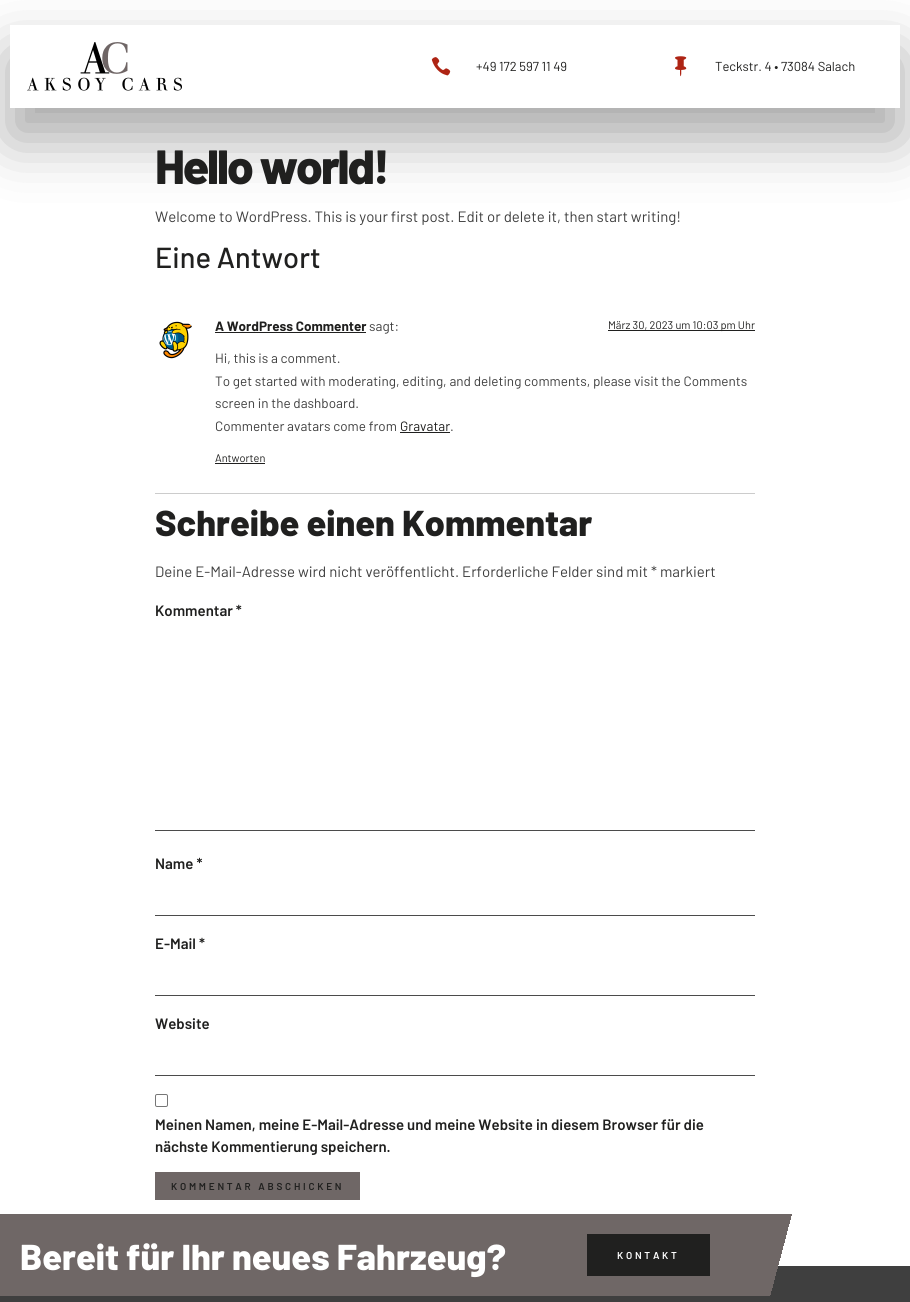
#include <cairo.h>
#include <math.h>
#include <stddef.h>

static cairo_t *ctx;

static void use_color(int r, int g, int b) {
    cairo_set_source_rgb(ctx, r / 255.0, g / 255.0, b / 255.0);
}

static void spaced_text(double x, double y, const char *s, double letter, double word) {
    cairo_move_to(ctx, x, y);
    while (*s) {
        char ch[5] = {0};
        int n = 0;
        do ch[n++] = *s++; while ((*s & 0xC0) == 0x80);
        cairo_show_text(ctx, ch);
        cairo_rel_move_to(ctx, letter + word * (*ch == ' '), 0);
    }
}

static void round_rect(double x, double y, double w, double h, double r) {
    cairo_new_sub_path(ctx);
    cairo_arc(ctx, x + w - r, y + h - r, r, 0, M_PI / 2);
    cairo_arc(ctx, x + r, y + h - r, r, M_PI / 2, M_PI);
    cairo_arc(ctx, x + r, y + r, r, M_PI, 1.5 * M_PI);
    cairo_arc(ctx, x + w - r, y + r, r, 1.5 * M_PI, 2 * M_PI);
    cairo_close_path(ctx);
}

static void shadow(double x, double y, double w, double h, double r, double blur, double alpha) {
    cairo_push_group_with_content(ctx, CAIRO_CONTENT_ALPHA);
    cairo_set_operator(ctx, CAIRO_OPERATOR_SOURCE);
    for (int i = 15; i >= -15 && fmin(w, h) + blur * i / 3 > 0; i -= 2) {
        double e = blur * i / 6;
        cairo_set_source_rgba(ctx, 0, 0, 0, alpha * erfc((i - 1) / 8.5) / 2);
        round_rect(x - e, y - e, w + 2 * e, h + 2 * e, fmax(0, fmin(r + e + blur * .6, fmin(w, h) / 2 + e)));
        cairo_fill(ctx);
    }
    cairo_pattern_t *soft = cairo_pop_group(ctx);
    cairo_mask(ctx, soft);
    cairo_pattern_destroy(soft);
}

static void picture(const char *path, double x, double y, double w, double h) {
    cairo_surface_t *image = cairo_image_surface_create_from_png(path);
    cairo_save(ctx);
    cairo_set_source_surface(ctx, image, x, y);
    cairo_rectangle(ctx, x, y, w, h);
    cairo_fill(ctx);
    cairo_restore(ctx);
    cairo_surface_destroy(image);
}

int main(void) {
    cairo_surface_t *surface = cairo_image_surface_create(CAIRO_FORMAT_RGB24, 910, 1302);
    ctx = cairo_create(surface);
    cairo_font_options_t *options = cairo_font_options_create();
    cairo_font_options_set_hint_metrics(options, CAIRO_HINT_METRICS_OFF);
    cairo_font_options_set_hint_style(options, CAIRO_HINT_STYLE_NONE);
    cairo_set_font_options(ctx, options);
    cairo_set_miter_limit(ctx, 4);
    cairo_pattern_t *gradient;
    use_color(255, 255, 255);
    cairo_paint(ctx);
    cairo_save(ctx);
    cairo_set_fill_rule(ctx, CAIRO_FILL_RULE_EVEN_ODD);
    cairo_new_path(ctx);
    cairo_move_to(ctx, 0, 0);
    cairo_line_to(ctx, 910, 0);
    cairo_line_to(ctx, 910, 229);
    cairo_line_to(ctx, 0, 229);
    cairo_close_path(ctx);
    cairo_move_to(ctx, 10, 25);
    cairo_line_to(ctx, 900, 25);
    cairo_line_to(ctx, 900, 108);
    cairo_line_to(ctx, 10, 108);
    cairo_close_path(ctx);
    cairo_clip(ctx);
    use_color(0, 0, 0);
    shadow(10, 55, 890, 83, 0, 30, 0.35);
    cairo_restore(ctx);
    picture("img1.png", 27, 42, 155, 49);
    picture("img2.png", 431, 57, 20, 19);
    cairo_select_font_face(ctx, "Barlow", CAIRO_FONT_SLANT_NORMAL, CAIRO_FONT_WEIGHT_NORMAL);
    cairo_set_font_size(ctx, 13);
    use_color(32, 32, 31);
    cairo_move_to(ctx, 476, 71);
    cairo_show_text(ctx, "+49 172 597 11 49");
    picture("img3.png", 675, 56, 12, 21);
    cairo_move_to(ctx, 715, 71);
    cairo_show_text(ctx, "Teckstr. 4 • 73084 Salach");
    cairo_select_font_face(ctx, "Barlow ExtraBold", CAIRO_FONT_SLANT_NORMAL, CAIRO_FONT_WEIGHT_NORMAL);
    cairo_set_font_size(ctx, 48);
    spaced_text(155, 184, "Hello world!", -2, 0);
    cairo_select_font_face(ctx, "Barlow", CAIRO_FONT_SLANT_NORMAL, CAIRO_FONT_WEIGHT_NORMAL);
    cairo_set_font_size(ctx, 15);
    use_color(63, 63, 63);
    cairo_move_to(ctx, 155, 222);
    cairo_show_text(ctx, "Welcome to WordPress. This is your first post. Edit or delete it, then start writing!");
    cairo_select_font_face(ctx, "Barlow Medium", CAIRO_FONT_SLANT_NORMAL, CAIRO_FONT_WEIGHT_NORMAL);
    cairo_set_font_size(ctx, 29);
    use_color(32, 32, 31);
    cairo_move_to(ctx, 155, 268);
    cairo_show_text(ctx, "Eine Antwort");
    use_color(204, 204, 204);
    cairo_rectangle(ctx, 155, 493, 600, 1);
    cairo_fill(ctx);
    picture("img4.png", 159, 321, 33, 38);
    cairo_select_font_face(ctx, "Barlow", CAIRO_FONT_SLANT_NORMAL, CAIRO_FONT_WEIGHT_BOLD);
    cairo_set_font_size(ctx, 13.5);
    use_color(32, 32, 31);
    cairo_move_to(ctx, 215, 331);
    cairo_show_text(ctx, "A WordPress Commenter");
    cairo_rectangle(ctx, 215, 332, 151, 1);
    cairo_fill(ctx);
    cairo_select_font_face(ctx, "Barlow", CAIRO_FONT_SLANT_NORMAL, CAIRO_FONT_WEIGHT_NORMAL);
    use_color(63, 63, 63);
    cairo_move_to(ctx, 369, 331);
    cairo_show_text(ctx, "sagt:");
    use_color(32, 32, 31);
    cairo_rectangle(ctx, 608, 330, 147, 1);
    cairo_fill(ctx);
    cairo_set_font_size(ctx, 11);
    cairo_move_to(ctx, 608, 329);
    cairo_show_text(ctx, "März 30, 2023 um 10:03 pm Uhr");
    cairo_set_font_size(ctx, 13.5);
    use_color(63, 63, 63);
    cairo_move_to(ctx, 215, 363);
    cairo_show_text(ctx, "Hi, this is a comment.");
    cairo_move_to(ctx, 215, 386);
    cairo_show_text(ctx, "To get started with moderating, editing, and deleting comments, please visit the Comments");
    cairo_move_to(ctx, 215, 408);
    cairo_show_text(ctx, "screen in the dashboard.");
    cairo_move_to(ctx, 215, 431);
    cairo_show_text(ctx, "Commenter avatars come from");
    use_color(32, 32, 31);
    cairo_move_to(ctx, 400, 431);
    cairo_show_text(ctx, "Gravatar");
    cairo_rectangle(ctx, 400, 432, 50, 1);
    cairo_fill(ctx);
    use_color(63, 63, 63);
    cairo_move_to(ctx, 450, 431);
    cairo_show_text(ctx, ".");
    cairo_set_font_size(ctx, 11);
    use_color(32, 32, 31);
    cairo_move_to(ctx, 215, 462);
    cairo_show_text(ctx, "Antworten");
    cairo_rectangle(ctx, 215, 463, 50, 1);
    cairo_fill(ctx);
    cairo_select_font_face(ctx, "Barlow ExtraBold", CAIRO_FONT_SLANT_NORMAL, CAIRO_FONT_WEIGHT_NORMAL);
    cairo_set_font_size(ctx, 36);
    cairo_move_to(ctx, 155, 536);
    cairo_show_text(ctx, "Schreibe einen Kommentar");
    cairo_select_font_face(ctx, "Barlow", CAIRO_FONT_SLANT_NORMAL, CAIRO_FONT_WEIGHT_NORMAL);
    cairo_set_font_size(ctx, 15);
    use_color(63, 63, 63);
    cairo_move_to(ctx, 155, 577);
    cairo_show_text(ctx, "Deine E-Mail-Adresse wird nicht veröffentlicht. Erforderliche Felder sind mit * markiert");
    cairo_select_font_face(ctx, "Barlow SemiBold", CAIRO_FONT_SLANT_NORMAL, CAIRO_FONT_WEIGHT_NORMAL);
    use_color(32, 32, 31);
    cairo_move_to(ctx, 155, 616);
    cairo_show_text(ctx, "Kommentar *");
    use_color(75, 75, 75);
    cairo_rectangle(ctx, 155, 830, 600, 1);
    cairo_fill(ctx);
    use_color(32, 32, 31);
    cairo_move_to(ctx, 155, 869);
    cairo_show_text(ctx, "Name *");
    use_color(75, 75, 75);
    cairo_rectangle(ctx, 155, 915, 600, 1);
    cairo_fill(ctx);
    use_color(32, 32, 31);
    cairo_move_to(ctx, 155, 949);
    cairo_show_text(ctx, "E-Mail *");
    use_color(75, 75, 75);
    cairo_rectangle(ctx, 155, 995, 600, 1);
    cairo_fill(ctx);
    use_color(32, 32, 31);
    cairo_move_to(ctx, 155, 1029);
    cairo_show_text(ctx, "Website");
    use_color(75, 75, 75);
    cairo_rectangle(ctx, 155, 1075, 600, 1);
    cairo_fill(ctx);
    round_rect(155.5, 1094.5, 12, 12, 1.5);
    use_color(118, 118, 118);
    cairo_set_line_width(ctx, 1);
    cairo_stroke(ctx);
    use_color(32, 32, 31);
    cairo_move_to(ctx, 155, 1130);
    cairo_show_text(ctx, "Meinen Namen, meine E-Mail-Adresse und meine Website in diesem Browser für die");
    cairo_move_to(ctx, 155, 1152);
    cairo_show_text(ctx, "nächste Kommentierung speichern.");
    use_color(111, 103, 102);
    cairo_rectangle(ctx, 155, 1172, 205, 28);
    cairo_fill(ctx);
    cairo_set_font_size(ctx, 10);
    use_color(32, 32, 31);
    spaced_text(171, 1190, "KOMMENTAR ABSCHICKEN", 2.75, 0);
    use_color(63, 63, 63);
    cairo_rectangle(ctx, 0, 1266, 910, 36);
    cairo_fill(ctx);
    gradient = cairo_pattern_create_linear(20, 1139, 890, 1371);
    cairo_pattern_add_color_stop_rgba(gradient, 0.85, 0.435, 0.404, 0.4, 1);
    cairo_pattern_add_color_stop_rgba(gradient, 0.85, 0.435, 0.404, 0.4, 0);
    cairo_set_source(ctx, gradient);
    cairo_pattern_destroy(gradient);
    cairo_rectangle(ctx, 0, 1214, 792, 82);
    cairo_fill(ctx);
    cairo_select_font_face(ctx, "Barlow ExtraBold", CAIRO_FONT_SLANT_NORMAL, CAIRO_FONT_WEIGHT_NORMAL);
    cairo_set_font_size(ctx, 36);
    use_color(255, 255, 255);
    cairo_move_to(ctx, 20, 1270);
    cairo_show_text(ctx, "Bereit für Ihr neues Fahrzeug?");
    use_color(32, 32, 31);
    cairo_rectangle(ctx, 587, 1234, 123, 42);
    cairo_fill(ctx);
    cairo_select_font_face(ctx, "Barlow SemiBold", CAIRO_FONT_SLANT_NORMAL, CAIRO_FONT_WEIGHT_NORMAL);
    cairo_set_font_size(ctx, 10);
    use_color(255, 255, 255);
    spaced_text(617, 1259, "KONTAKT", 2.75, 0);
    cairo_surface_write_to_png(surface, "result.png");
    cairo_font_options_destroy(options);
    cairo_destroy(ctx);
    cairo_surface_destroy(surface);
    return 0;
}
